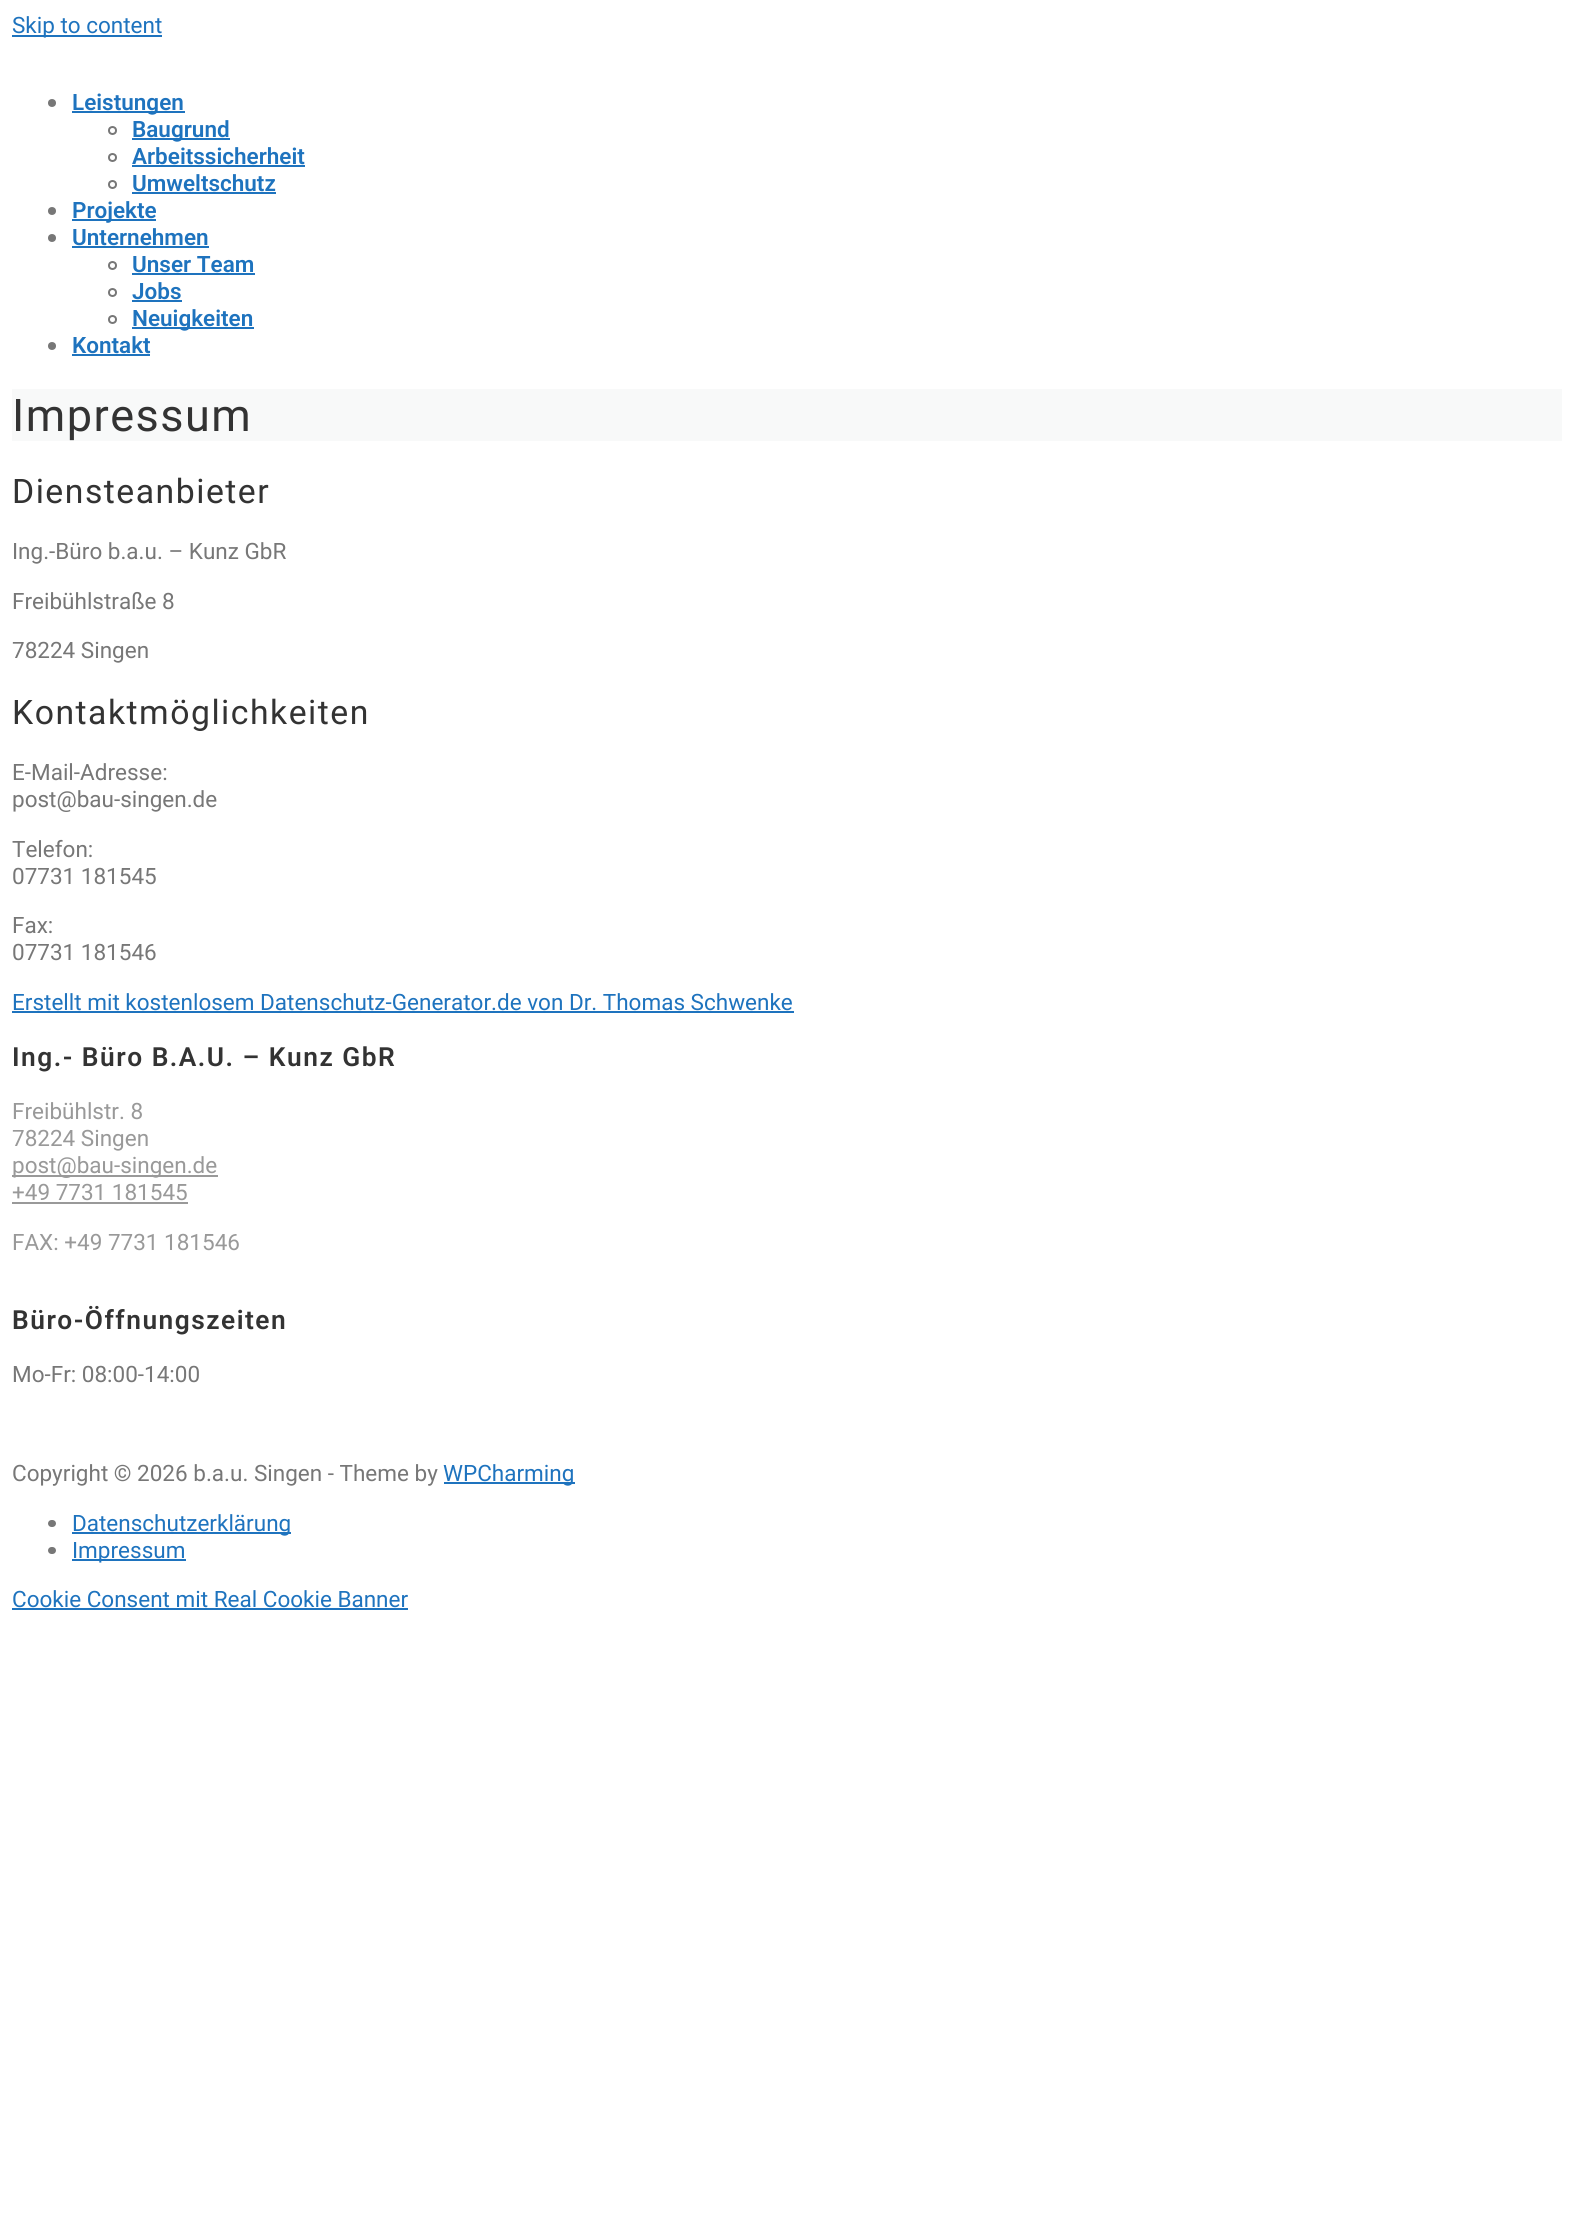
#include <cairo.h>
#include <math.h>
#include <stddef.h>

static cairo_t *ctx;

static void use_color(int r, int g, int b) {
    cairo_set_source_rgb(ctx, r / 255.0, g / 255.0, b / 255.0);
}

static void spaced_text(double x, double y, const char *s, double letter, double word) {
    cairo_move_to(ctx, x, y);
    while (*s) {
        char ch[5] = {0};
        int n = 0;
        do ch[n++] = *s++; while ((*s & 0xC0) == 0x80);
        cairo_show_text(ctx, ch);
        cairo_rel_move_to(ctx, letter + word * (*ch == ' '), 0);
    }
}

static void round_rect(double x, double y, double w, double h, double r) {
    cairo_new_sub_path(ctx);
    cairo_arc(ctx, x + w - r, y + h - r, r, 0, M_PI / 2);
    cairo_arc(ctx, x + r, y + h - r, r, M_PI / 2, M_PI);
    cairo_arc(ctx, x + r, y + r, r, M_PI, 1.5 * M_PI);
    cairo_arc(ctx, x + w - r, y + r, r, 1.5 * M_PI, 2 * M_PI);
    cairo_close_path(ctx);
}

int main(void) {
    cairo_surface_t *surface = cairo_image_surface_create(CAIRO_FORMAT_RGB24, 1573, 2213);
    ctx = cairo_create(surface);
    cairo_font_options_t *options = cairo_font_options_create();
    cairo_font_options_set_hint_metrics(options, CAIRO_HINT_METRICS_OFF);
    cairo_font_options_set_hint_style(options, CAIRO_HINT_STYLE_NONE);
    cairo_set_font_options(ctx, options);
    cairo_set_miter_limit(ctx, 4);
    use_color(255, 255, 255);
    cairo_paint(ctx);
    use_color(30, 115, 190);
    cairo_rectangle(ctx, 12, 35, 150, 2);
    cairo_fill(ctx);
    cairo_select_font_face(ctx, "Roboto", CAIRO_FONT_SLANT_NORMAL, CAIRO_FONT_WEIGHT_NORMAL);
    cairo_set_font_size(ctx, 22.5);
    cairo_move_to(ctx, 12, 33);
    cairo_show_text(ctx, "Skip to content");
    use_color(119, 119, 119);
    cairo_new_path(ctx);
    cairo_arc(ctx, 52, 103, 4, 0, 2 * M_PI);
    cairo_fill(ctx);
    use_color(30, 115, 190);
    cairo_rectangle(ctx, 72, 111, 113, 2);
    cairo_fill(ctx);
    cairo_select_font_face(ctx, "Roboto SemiBold", CAIRO_FONT_SLANT_NORMAL, CAIRO_FONT_WEIGHT_NORMAL);
    cairo_move_to(ctx, 72, 110);
    cairo_show_text(ctx, "Leistungen");
    cairo_new_path(ctx);
    cairo_arc(ctx, 112.5, 130.5, 3.5, 0, 2 * M_PI);
    use_color(119, 119, 119);
    cairo_stroke(ctx);
    use_color(30, 115, 190);
    cairo_rectangle(ctx, 132, 138, 98, 2);
    cairo_fill(ctx);
    cairo_move_to(ctx, 132, 137);
    cairo_show_text(ctx, "Baugrund");
    cairo_new_path(ctx);
    cairo_arc(ctx, 112.5, 157.5, 3.5, 0, 2 * M_PI);
    use_color(119, 119, 119);
    cairo_stroke(ctx);
    use_color(30, 115, 190);
    cairo_move_to(ctx, 132, 164);
    cairo_show_text(ctx, "Arbeitssicherheit");
    cairo_rectangle(ctx, 132, 165, 173, 2);
    cairo_fill(ctx);
    cairo_arc(ctx, 112.5, 184.5, 3.5, 0, 2 * M_PI);
    use_color(119, 119, 119);
    cairo_stroke(ctx);
    use_color(30, 115, 190);
    cairo_move_to(ctx, 132, 191);
    cairo_show_text(ctx, "Umweltschutz");
    cairo_rectangle(ctx, 132, 192, 144, 2);
    cairo_fill(ctx);
    use_color(119, 119, 119);
    cairo_arc(ctx, 52, 211, 4, 0, 2 * M_PI);
    cairo_fill(ctx);
    use_color(30, 115, 190);
    cairo_rectangle(ctx, 72, 219, 84, 2);
    cairo_fill(ctx);
    cairo_move_to(ctx, 72, 218);
    cairo_show_text(ctx, "Projekte");
    use_color(119, 119, 119);
    cairo_new_path(ctx);
    cairo_arc(ctx, 52, 238, 4, 0, 2 * M_PI);
    cairo_fill(ctx);
    use_color(30, 115, 190);
    cairo_move_to(ctx, 72, 245);
    cairo_show_text(ctx, "Unternehmen");
    cairo_rectangle(ctx, 72, 246, 137, 2);
    cairo_fill(ctx);
    cairo_arc(ctx, 112.5, 265.5, 3.5, 0, 2 * M_PI);
    use_color(119, 119, 119);
    cairo_stroke(ctx);
    use_color(30, 115, 190);
    cairo_move_to(ctx, 132, 272);
    cairo_show_text(ctx, "Unser Team");
    cairo_rectangle(ctx, 132, 273, 123, 2);
    cairo_fill(ctx);
    cairo_arc(ctx, 112.5, 292.5, 3.5, 0, 2 * M_PI);
    use_color(119, 119, 119);
    cairo_stroke(ctx);
    use_color(30, 115, 190);
    cairo_move_to(ctx, 132, 299);
    cairo_show_text(ctx, "Jobs");
    cairo_rectangle(ctx, 132, 300, 50, 2);
    cairo_fill(ctx);
    cairo_arc(ctx, 112.5, 319.5, 3.5, 0, 2 * M_PI);
    use_color(119, 119, 119);
    cairo_stroke(ctx);
    use_color(30, 115, 190);
    cairo_rectangle(ctx, 132, 327, 122, 2);
    cairo_fill(ctx);
    cairo_move_to(ctx, 132, 326);
    cairo_show_text(ctx, "Neuigkeiten");
    use_color(119, 119, 119);
    cairo_new_path(ctx);
    cairo_arc(ctx, 52, 346, 4, 0, 2 * M_PI);
    cairo_fill(ctx);
    use_color(30, 115, 190);
    cairo_move_to(ctx, 72, 353);
    cairo_show_text(ctx, "Kontakt");
    cairo_rectangle(ctx, 72, 354, 78, 2);
    cairo_fill(ctx);
    use_color(248, 249, 249);
    cairo_rectangle(ctx, 12, 389, 1550, 52);
    cairo_fill(ctx);
    cairo_select_font_face(ctx, "Roboto", CAIRO_FONT_SLANT_NORMAL, CAIRO_FONT_WEIGHT_NORMAL);
    cairo_set_font_size(ctx, 45);
    use_color(51, 51, 51);
    spaced_text(12, 431, "Impressum", 1.5, 0);
    cairo_set_font_size(ctx, 33.75);
    spaced_text(12, 503, "Diensteanbieter", 1.5, 0);
    cairo_set_font_size(ctx, 22.5);
    use_color(119, 119, 119);
    cairo_move_to(ctx, 12, 559);
    cairo_show_text(ctx, "Ing.-Büro b.a.u. – Kunz GbR");
    cairo_move_to(ctx, 12, 609);
    cairo_show_text(ctx, "Freibühlstraße 8");
    cairo_move_to(ctx, 12, 658);
    cairo_show_text(ctx, "78224 Singen");
    cairo_set_font_size(ctx, 33.75);
    use_color(51, 51, 51);
    spaced_text(12, 724, "Kontaktmöglichkeiten", 1.5, 0);
    cairo_set_font_size(ctx, 22.5);
    use_color(119, 119, 119);
    cairo_move_to(ctx, 12, 780);
    cairo_show_text(ctx, "E-Mail-Adresse:");
    cairo_move_to(ctx, 12, 807);
    cairo_show_text(ctx, "post@bau-singen.de");
    cairo_move_to(ctx, 12, 857);
    cairo_show_text(ctx, "Telefon:");
    cairo_move_to(ctx, 12, 884);
    cairo_show_text(ctx, "07731 181545");
    cairo_move_to(ctx, 12, 933);
    cairo_show_text(ctx, "Fax:");
    cairo_move_to(ctx, 12, 960);
    cairo_show_text(ctx, "07731 181546");
    use_color(30, 115, 190);
    cairo_move_to(ctx, 12, 1010);
    cairo_show_text(ctx, "Erstellt mit kostenlosem Datenschutz-Generator.de von Dr. Thomas Schwenke");
    cairo_rectangle(ctx, 12, 1011, 782, 2);
    cairo_fill(ctx);
    cairo_select_font_face(ctx, "Roboto SemiBold", CAIRO_FONT_SLANT_NORMAL, CAIRO_FONT_WEIGHT_NORMAL);
    cairo_set_font_size(ctx, 26.3);
    use_color(51, 51, 51);
    spaced_text(12, 1066, "Ing.- Büro B.A.U. – Kunz GbR", 1.5, 0);
    cairo_select_font_face(ctx, "Roboto", CAIRO_FONT_SLANT_NORMAL, CAIRO_FONT_WEIGHT_NORMAL);
    cairo_set_font_size(ctx, 22.5);
    use_color(153, 153, 153);
    cairo_move_to(ctx, 12, 1119);
    cairo_show_text(ctx, "Freibühlstr. 8");
    cairo_move_to(ctx, 12, 1146);
    cairo_show_text(ctx, "78224 Singen");
    cairo_rectangle(ctx, 12, 1175, 206, 2);
    cairo_fill(ctx);
    cairo_move_to(ctx, 12, 1173);
    cairo_show_text(ctx, "post@bau-singen.de");
    cairo_move_to(ctx, 12, 1200);
    cairo_show_text(ctx, "+49 7731 181545");
    cairo_rectangle(ctx, 12, 1202, 176, 2);
    cairo_fill(ctx);
    cairo_move_to(ctx, 12, 1250);
    cairo_show_text(ctx, "FAX: +49 7731 181546");
    cairo_select_font_face(ctx, "Roboto SemiBold", CAIRO_FONT_SLANT_NORMAL, CAIRO_FONT_WEIGHT_NORMAL);
    cairo_set_font_size(ctx, 26.3);
    use_color(51, 51, 51);
    spaced_text(12, 1329, "Büro-Öffnungszeiten", 1.5, 0);
    cairo_select_font_face(ctx, "Roboto", CAIRO_FONT_SLANT_NORMAL, CAIRO_FONT_WEIGHT_NORMAL);
    cairo_set_font_size(ctx, 22.5);
    use_color(119, 119, 119);
    cairo_move_to(ctx, 12, 1382);
    cairo_show_text(ctx, "Mo-Fr: 08:00-14:00");
    cairo_move_to(ctx, 12, 1481);
    cairo_show_text(ctx, "Copyright © 2026 b.a.u. Singen - Theme by");
    use_color(30, 115, 190);
    cairo_rectangle(ctx, 444, 1482, 131, 2);
    cairo_fill(ctx);
    cairo_move_to(ctx, 443, 1481);
    cairo_show_text(ctx, "WPCharming");
    use_color(119, 119, 119);
    round_rect(48, 1520, 8, 7, 3.5);
    cairo_fill(ctx);
    use_color(30, 115, 190);
    cairo_rectangle(ctx, 72, 1532, 219, 2);
    cairo_fill(ctx);
    cairo_move_to(ctx, 72, 1531);
    cairo_show_text(ctx, "Datenschutzerklärung");
    use_color(119, 119, 119);
    round_rect(48, 1547, 8, 7, 3.5);
    cairo_fill(ctx);
    use_color(30, 115, 190);
    cairo_rectangle(ctx, 72, 1559, 114, 2);
    cairo_fill(ctx);
    cairo_move_to(ctx, 72, 1558);
    cairo_show_text(ctx, "Impressum");
    cairo_move_to(ctx, 12, 1607);
    cairo_show_text(ctx, "Cookie Consent mit Real Cookie Banner");
    cairo_rectangle(ctx, 12, 1608, 396, 2);
    cairo_fill(ctx);
    cairo_surface_write_to_png(surface, "result.png");
    cairo_font_options_destroy(options);
    cairo_destroy(ctx);
    cairo_surface_destroy(surface);
    return 0;
}
